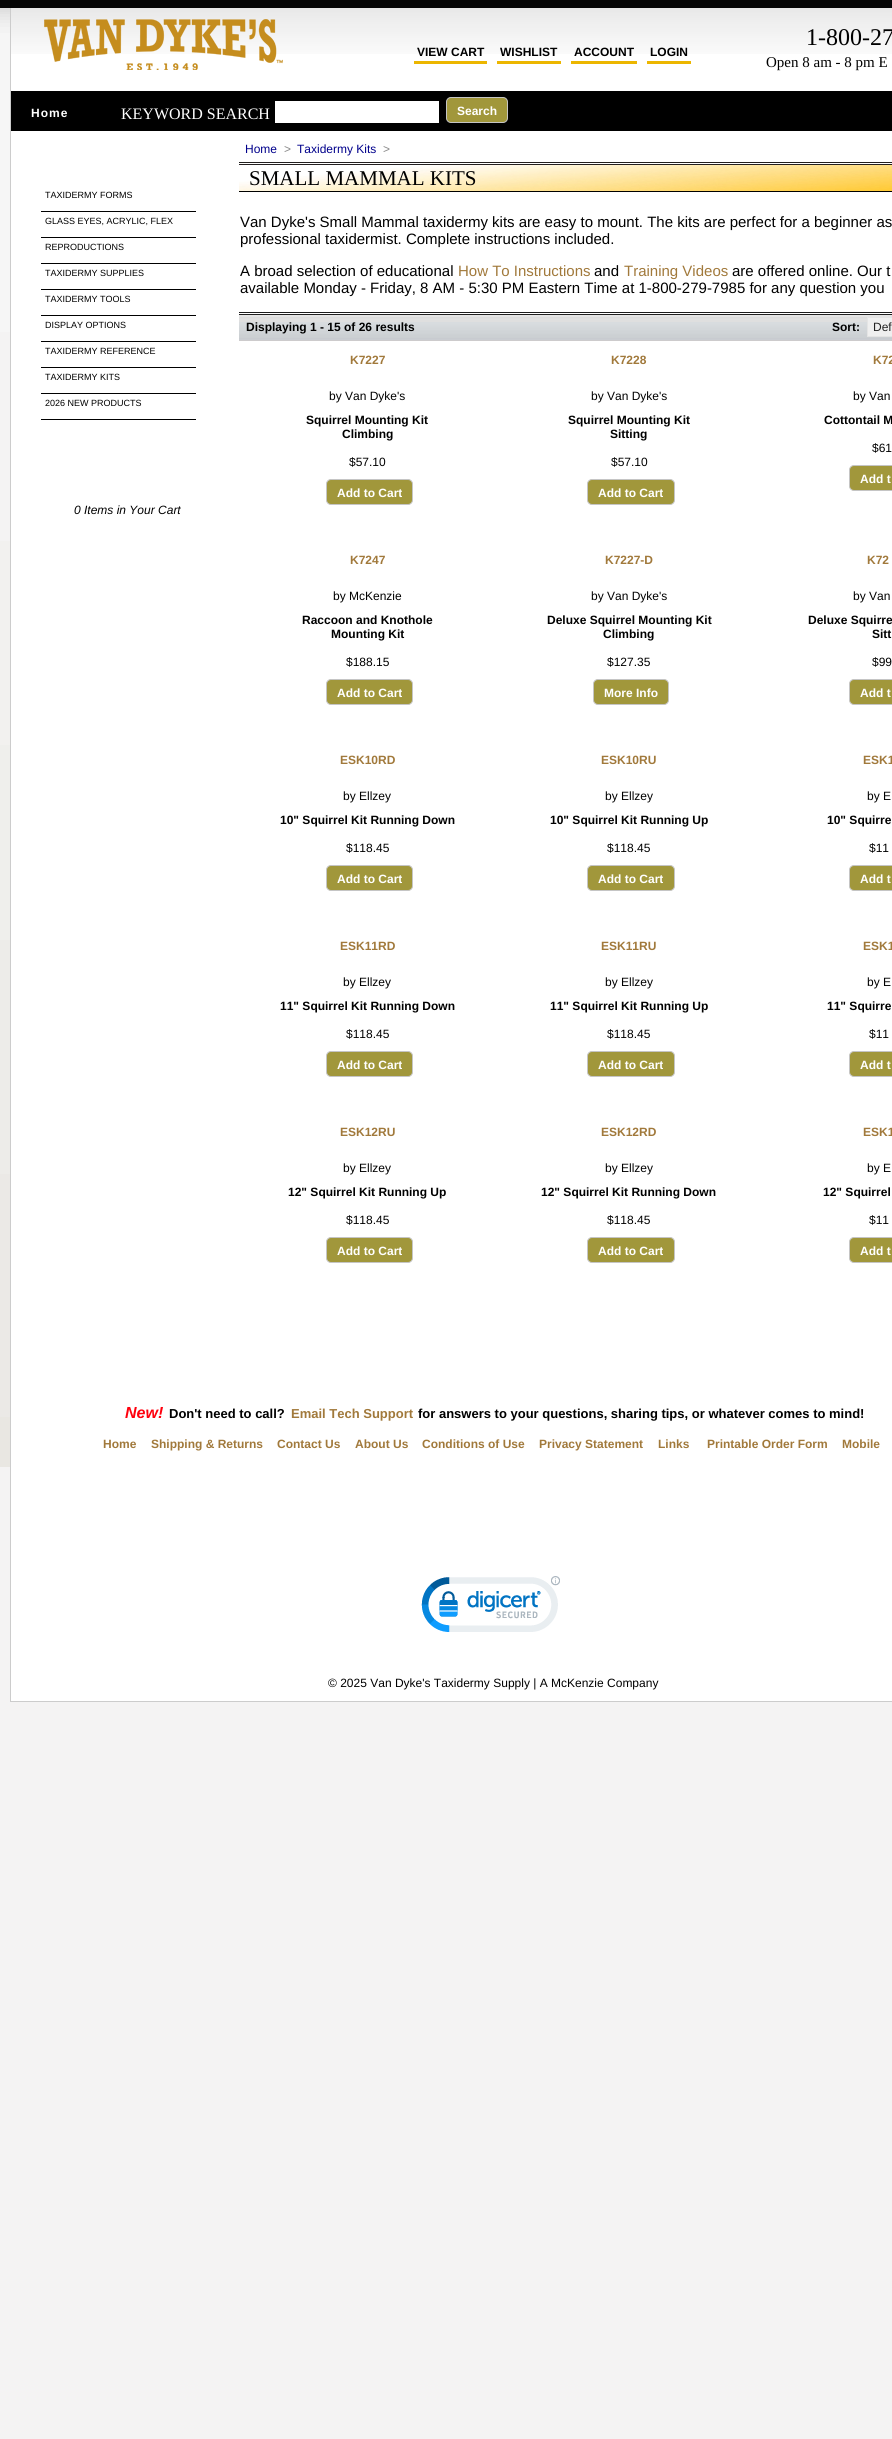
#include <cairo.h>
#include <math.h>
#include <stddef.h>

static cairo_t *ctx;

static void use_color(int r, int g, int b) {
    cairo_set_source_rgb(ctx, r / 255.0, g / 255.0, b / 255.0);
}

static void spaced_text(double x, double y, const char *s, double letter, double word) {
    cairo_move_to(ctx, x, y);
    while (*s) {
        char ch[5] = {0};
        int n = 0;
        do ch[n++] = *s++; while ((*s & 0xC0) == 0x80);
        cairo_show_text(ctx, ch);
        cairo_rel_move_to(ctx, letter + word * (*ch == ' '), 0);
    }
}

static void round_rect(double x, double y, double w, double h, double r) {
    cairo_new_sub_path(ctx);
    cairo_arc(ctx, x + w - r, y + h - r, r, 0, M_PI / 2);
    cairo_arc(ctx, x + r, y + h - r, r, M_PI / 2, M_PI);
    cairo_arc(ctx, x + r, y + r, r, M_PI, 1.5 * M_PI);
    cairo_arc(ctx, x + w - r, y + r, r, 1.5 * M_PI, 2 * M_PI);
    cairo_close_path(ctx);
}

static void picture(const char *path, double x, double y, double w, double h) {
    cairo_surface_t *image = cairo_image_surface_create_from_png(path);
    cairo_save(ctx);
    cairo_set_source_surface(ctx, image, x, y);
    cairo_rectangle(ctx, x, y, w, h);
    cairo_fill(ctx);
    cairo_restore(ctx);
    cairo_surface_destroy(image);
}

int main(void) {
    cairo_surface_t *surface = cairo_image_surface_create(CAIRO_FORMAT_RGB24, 892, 2439);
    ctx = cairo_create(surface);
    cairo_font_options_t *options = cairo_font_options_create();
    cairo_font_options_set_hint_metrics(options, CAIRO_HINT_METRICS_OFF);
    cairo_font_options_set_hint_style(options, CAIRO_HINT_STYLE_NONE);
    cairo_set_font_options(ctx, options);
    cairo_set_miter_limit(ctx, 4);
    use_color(244, 243, 243);
    cairo_paint(ctx);
    picture("img1.png", 0, 0, 892, 1467);
    use_color(255, 255, 255);
    cairo_rectangle(ctx, 11, 54, 881, 1647);
    cairo_fill(ctx);
    use_color(204, 204, 204);
    cairo_rectangle(ctx, 10, 1701, 882, 1);
    cairo_fill(ctx);
    cairo_rectangle(ctx, 10, 8, 1, 1694);
    cairo_fill(ctx);
    picture("img2.png", 11, 8, 881, 46);
    picture("img3.png", 44, 19, 239, 51);
    cairo_select_font_face(ctx, "Liberation Serif", CAIRO_FONT_SLANT_NORMAL, CAIRO_FONT_WEIGHT_NORMAL);
    cairo_set_font_size(ctx, 24);
    use_color(0, 0, 0);
    cairo_move_to(ctx, 806, 45);
    cairo_show_text(ctx, "1-800-27");
    use_color(236, 182, 0);
    cairo_rectangle(ctx, 414, 61, 73, 3);
    cairo_fill(ctx);
    cairo_select_font_face(ctx, "Liberation Sans", CAIRO_FONT_SLANT_NORMAL, CAIRO_FONT_WEIGHT_BOLD);
    cairo_set_font_size(ctx, 12);
    use_color(0, 0, 0);
    cairo_move_to(ctx, 417, 56);
    cairo_show_text(ctx, "VIEW CART");
    use_color(236, 182, 0);
    cairo_rectangle(ctx, 497, 61, 64, 3);
    cairo_fill(ctx);
    use_color(0, 0, 0);
    cairo_move_to(ctx, 500, 56);
    cairo_show_text(ctx, "WISHLIST");
    use_color(236, 182, 0);
    cairo_rectangle(ctx, 571, 61, 66, 3);
    cairo_fill(ctx);
    use_color(0, 0, 0);
    cairo_move_to(ctx, 574, 56);
    cairo_show_text(ctx, "ACCOUNT");
    use_color(236, 182, 0);
    cairo_rectangle(ctx, 647, 61, 44, 3);
    cairo_fill(ctx);
    use_color(0, 0, 0);
    cairo_move_to(ctx, 650, 56);
    cairo_show_text(ctx, "LOGIN");
    cairo_select_font_face(ctx, "Liberation Serif", CAIRO_FONT_SLANT_NORMAL, CAIRO_FONT_WEIGHT_NORMAL);
    cairo_set_font_size(ctx, 15);
    cairo_move_to(ctx, 766, 67);
    cairo_show_text(ctx, "Open 8 am - 8 pm E");
    cairo_rectangle(ctx, 11, 91, 881, 40);
    cairo_fill(ctx);
    cairo_select_font_face(ctx, "Liberation Sans", CAIRO_FONT_SLANT_NORMAL, CAIRO_FONT_WEIGHT_BOLD);
    cairo_set_font_size(ctx, 12);
    use_color(255, 255, 255);
    spaced_text(31, 117, "Home", 1, 0);
    cairo_select_font_face(ctx, "Liberation Serif", CAIRO_FONT_SLANT_NORMAL, CAIRO_FONT_WEIGHT_NORMAL);
    cairo_set_font_size(ctx, 16);
    cairo_move_to(ctx, 121, 119);
    cairo_show_text(ctx, "KEYWORD SEARCH");
    cairo_rectangle(ctx, 275, 101, 164, 22);
    cairo_fill(ctx);
    use_color(161, 151, 59);
    round_rect(446.5, 97.5, 61, 25, 4.5);
    cairo_fill_preserve(ctx);
    use_color(197, 197, 197);
    cairo_set_line_width(ctx, 1);
    cairo_stroke(ctx);
    cairo_select_font_face(ctx, "Liberation Sans", CAIRO_FONT_SLANT_NORMAL, CAIRO_FONT_WEIGHT_BOLD);
    cairo_set_font_size(ctx, 12);
    use_color(255, 255, 255);
    cairo_move_to(ctx, 457, 115);
    cairo_show_text(ctx, "Search");
    use_color(0, 0, 0);
    cairo_rectangle(ctx, 41, 211, 155, 1);
    cairo_fill(ctx);
    cairo_select_font_face(ctx, "Liberation Sans", CAIRO_FONT_SLANT_NORMAL, CAIRO_FONT_WEIGHT_NORMAL);
    cairo_set_font_size(ctx, 9);
    cairo_move_to(ctx, 45, 198);
    cairo_show_text(ctx, "TAXIDERMY FORMS");
    cairo_rectangle(ctx, 41, 237, 155, 1);
    cairo_fill(ctx);
    cairo_move_to(ctx, 45, 224);
    cairo_show_text(ctx, "GLASS EYES, ACRYLIC, FLEX");
    cairo_rectangle(ctx, 41, 263, 155, 1);
    cairo_fill(ctx);
    cairo_move_to(ctx, 45, 250);
    cairo_show_text(ctx, "REPRODUCTIONS");
    cairo_rectangle(ctx, 41, 289, 155, 1);
    cairo_fill(ctx);
    cairo_move_to(ctx, 45, 276);
    cairo_show_text(ctx, "TAXIDERMY SUPPLIES");
    cairo_rectangle(ctx, 41, 315, 155, 1);
    cairo_fill(ctx);
    cairo_move_to(ctx, 45, 302);
    cairo_show_text(ctx, "TAXIDERMY TOOLS");
    cairo_rectangle(ctx, 41, 341, 155, 1);
    cairo_fill(ctx);
    cairo_move_to(ctx, 45, 328);
    cairo_show_text(ctx, "DISPLAY OPTIONS");
    cairo_rectangle(ctx, 41, 367, 155, 1);
    cairo_fill(ctx);
    cairo_move_to(ctx, 45, 354);
    cairo_show_text(ctx, "TAXIDERMY REFERENCE");
    cairo_rectangle(ctx, 41, 393, 155, 1);
    cairo_fill(ctx);
    cairo_move_to(ctx, 45, 380);
    cairo_show_text(ctx, "TAXIDERMY KITS");
    cairo_rectangle(ctx, 41, 419, 155, 1);
    cairo_fill(ctx);
    cairo_move_to(ctx, 45, 406);
    cairo_show_text(ctx, "2026 NEW PRODUCTS");
    cairo_select_font_face(ctx, "Liberation Sans", CAIRO_FONT_SLANT_ITALIC, CAIRO_FONT_WEIGHT_NORMAL);
    cairo_set_font_size(ctx, 12);
    cairo_move_to(ctx, 74, 514);
    cairo_show_text(ctx, "0 Items in Your Cart");
    cairo_select_font_face(ctx, "Liberation Sans", CAIRO_FONT_SLANT_NORMAL, CAIRO_FONT_WEIGHT_NORMAL);
    use_color(0, 0, 139);
    cairo_move_to(ctx, 245, 153);
    cairo_show_text(ctx, "Home");
    use_color(136, 136, 136);
    cairo_move_to(ctx, 284, 153);
    cairo_show_text(ctx, ">");
    use_color(0, 0, 139);
    cairo_move_to(ctx, 297, 153);
    cairo_show_text(ctx, "Taxidermy Kits");
    use_color(136, 136, 136);
    cairo_move_to(ctx, 383, 153);
    cairo_show_text(ctx, ">");
    picture("img4.png", 239, 162, 653, 29);
    use_color(0, 0, 0);
    cairo_rectangle(ctx, 239, 191, 653, 1);
    cairo_fill(ctx);
    cairo_select_font_face(ctx, "Liberation Serif", CAIRO_FONT_SLANT_NORMAL, CAIRO_FONT_WEIGHT_NORMAL);
    cairo_set_font_size(ctx, 21);
    cairo_move_to(ctx, 249, 185);
    cairo_show_text(ctx, "SMALL MAMMAL KITS");
    cairo_select_font_face(ctx, "Liberation Sans", CAIRO_FONT_SLANT_NORMAL, CAIRO_FONT_WEIGHT_NORMAL);
    cairo_set_font_size(ctx, 15);
    cairo_move_to(ctx, 240, 227);
    cairo_show_text(ctx, "Van Dyke's Small Mammal taxidermy kits are easy to mount. The kits are perfect for a beginner as");
    cairo_move_to(ctx, 240, 244);
    cairo_show_text(ctx, "professional taxidermist. Complete instructions included.");
    cairo_move_to(ctx, 240, 276);
    cairo_show_text(ctx, "A broad selection of educational");
    use_color(161, 121, 59);
    cairo_move_to(ctx, 458, 276);
    cairo_show_text(ctx, "How To Instructions");
    use_color(0, 0, 0);
    cairo_move_to(ctx, 594, 276);
    cairo_show_text(ctx, "and");
    use_color(161, 121, 59);
    cairo_move_to(ctx, 624, 276);
    cairo_show_text(ctx, "Training Videos");
    use_color(0, 0, 0);
    cairo_move_to(ctx, 732, 276);
    cairo_show_text(ctx, "are offered online. Our t");
    cairo_move_to(ctx, 240, 293);
    cairo_show_text(ctx, "available Monday - Friday, 8 AM - 5:30 PM Eastern Time at 1-800-279-7985 for any question you");
    picture("img5.png", 239, 312, 653, 29);
    cairo_select_font_face(ctx, "Liberation Sans", CAIRO_FONT_SLANT_NORMAL, CAIRO_FONT_WEIGHT_BOLD);
    cairo_set_font_size(ctx, 12);
    cairo_move_to(ctx, 246, 331);
    cairo_show_text(ctx, "Displaying 1 - 15 of 26 results");
    cairo_move_to(ctx, 832, 331);
    cairo_show_text(ctx, "Sort:");
    use_color(239, 239, 239);
    cairo_rectangle(ctx, 867.5, 317.5, 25, 19);
    cairo_fill_preserve(ctx);
    use_color(228, 228, 228);
    cairo_stroke(ctx);
    cairo_select_font_face(ctx, "Liberation Sans", CAIRO_FONT_SLANT_NORMAL, CAIRO_FONT_WEIGHT_NORMAL);
    use_color(34, 34, 34);
    cairo_move_to(ctx, 873, 331);
    cairo_show_text(ctx, "Def");
    cairo_select_font_face(ctx, "Liberation Sans", CAIRO_FONT_SLANT_NORMAL, CAIRO_FONT_WEIGHT_BOLD);
    use_color(161, 121, 59);
    cairo_move_to(ctx, 350, 364);
    cairo_show_text(ctx, "K7227");
    cairo_select_font_face(ctx, "Liberation Sans", CAIRO_FONT_SLANT_NORMAL, CAIRO_FONT_WEIGHT_NORMAL);
    use_color(0, 0, 0);
    cairo_move_to(ctx, 329, 400);
    cairo_show_text(ctx, "by Van Dyke's");
    cairo_select_font_face(ctx, "Liberation Sans", CAIRO_FONT_SLANT_NORMAL, CAIRO_FONT_WEIGHT_BOLD);
    cairo_move_to(ctx, 306, 424);
    cairo_show_text(ctx, "Squirrel Mounting Kit");
    cairo_move_to(ctx, 342, 438);
    cairo_show_text(ctx, "Climbing");
    cairo_select_font_face(ctx, "Liberation Sans", CAIRO_FONT_SLANT_NORMAL, CAIRO_FONT_WEIGHT_NORMAL);
    cairo_move_to(ctx, 349, 466);
    cairo_show_text(ctx, "$57.10");
    use_color(161, 151, 59);
    round_rect(326.5, 479.5, 86, 25, 4.5);
    cairo_fill_preserve(ctx);
    use_color(197, 197, 197);
    cairo_stroke(ctx);
    cairo_select_font_face(ctx, "Liberation Sans", CAIRO_FONT_SLANT_NORMAL, CAIRO_FONT_WEIGHT_BOLD);
    use_color(255, 255, 255);
    cairo_move_to(ctx, 337, 497);
    cairo_show_text(ctx, "Add to Cart");
    use_color(161, 121, 59);
    cairo_move_to(ctx, 611, 364);
    cairo_show_text(ctx, "K7228");
    cairo_select_font_face(ctx, "Liberation Sans", CAIRO_FONT_SLANT_NORMAL, CAIRO_FONT_WEIGHT_NORMAL);
    use_color(0, 0, 0);
    cairo_move_to(ctx, 591, 400);
    cairo_show_text(ctx, "by Van Dyke's");
    cairo_select_font_face(ctx, "Liberation Sans", CAIRO_FONT_SLANT_NORMAL, CAIRO_FONT_WEIGHT_BOLD);
    cairo_move_to(ctx, 568, 424);
    cairo_show_text(ctx, "Squirrel Mounting Kit");
    cairo_move_to(ctx, 610, 438);
    cairo_show_text(ctx, "Sitting");
    cairo_select_font_face(ctx, "Liberation Sans", CAIRO_FONT_SLANT_NORMAL, CAIRO_FONT_WEIGHT_NORMAL);
    cairo_move_to(ctx, 611, 466);
    cairo_show_text(ctx, "$57.10");
    use_color(161, 151, 59);
    round_rect(587.5, 479.5, 87, 25, 4.5);
    cairo_fill_preserve(ctx);
    use_color(197, 197, 197);
    cairo_stroke(ctx);
    cairo_select_font_face(ctx, "Liberation Sans", CAIRO_FONT_SLANT_NORMAL, CAIRO_FONT_WEIGHT_BOLD);
    use_color(255, 255, 255);
    cairo_move_to(ctx, 598, 497);
    cairo_show_text(ctx, "Add to Cart");
    use_color(161, 121, 59);
    cairo_move_to(ctx, 873, 364);
    cairo_show_text(ctx, "K72");
    cairo_select_font_face(ctx, "Liberation Sans", CAIRO_FONT_SLANT_NORMAL, CAIRO_FONT_WEIGHT_NORMAL);
    use_color(0, 0, 0);
    cairo_move_to(ctx, 853, 400);
    cairo_show_text(ctx, "by Van");
    cairo_select_font_face(ctx, "Liberation Sans", CAIRO_FONT_SLANT_NORMAL, CAIRO_FONT_WEIGHT_BOLD);
    cairo_move_to(ctx, 824, 424);
    cairo_show_text(ctx, "Cottontail M");
    cairo_select_font_face(ctx, "Liberation Sans", CAIRO_FONT_SLANT_NORMAL, CAIRO_FONT_WEIGHT_NORMAL);
    cairo_move_to(ctx, 872, 452);
    cairo_show_text(ctx, "$61");
    use_color(161, 151, 59);
    round_rect(849.5, 465.5, 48, 25, 4.5);
    cairo_fill_preserve(ctx);
    use_color(197, 197, 197);
    cairo_stroke(ctx);
    cairo_select_font_face(ctx, "Liberation Sans", CAIRO_FONT_SLANT_NORMAL, CAIRO_FONT_WEIGHT_BOLD);
    use_color(255, 255, 255);
    cairo_move_to(ctx, 860, 483);
    cairo_show_text(ctx, "Add t");
    use_color(161, 121, 59);
    cairo_move_to(ctx, 350, 564);
    cairo_show_text(ctx, "K7247");
    cairo_select_font_face(ctx, "Liberation Sans", CAIRO_FONT_SLANT_NORMAL, CAIRO_FONT_WEIGHT_NORMAL);
    use_color(0, 0, 0);
    cairo_move_to(ctx, 333, 600);
    cairo_show_text(ctx, "by McKenzie");
    cairo_select_font_face(ctx, "Liberation Sans", CAIRO_FONT_SLANT_NORMAL, CAIRO_FONT_WEIGHT_BOLD);
    cairo_move_to(ctx, 302, 624);
    cairo_show_text(ctx, "Raccoon and Knothole");
    cairo_move_to(ctx, 331, 638);
    cairo_show_text(ctx, "Mounting Kit");
    cairo_select_font_face(ctx, "Liberation Sans", CAIRO_FONT_SLANT_NORMAL, CAIRO_FONT_WEIGHT_NORMAL);
    cairo_move_to(ctx, 346, 666);
    cairo_show_text(ctx, "$188.15");
    use_color(161, 151, 59);
    round_rect(326.5, 679.5, 86, 25, 4.5);
    cairo_fill_preserve(ctx);
    use_color(197, 197, 197);
    cairo_stroke(ctx);
    cairo_select_font_face(ctx, "Liberation Sans", CAIRO_FONT_SLANT_NORMAL, CAIRO_FONT_WEIGHT_BOLD);
    use_color(255, 255, 255);
    cairo_move_to(ctx, 337, 697);
    cairo_show_text(ctx, "Add to Cart");
    use_color(161, 121, 59);
    cairo_move_to(ctx, 605, 564);
    cairo_show_text(ctx, "K7227-D");
    cairo_select_font_face(ctx, "Liberation Sans", CAIRO_FONT_SLANT_NORMAL, CAIRO_FONT_WEIGHT_NORMAL);
    use_color(0, 0, 0);
    cairo_move_to(ctx, 591, 600);
    cairo_show_text(ctx, "by Van Dyke's");
    cairo_select_font_face(ctx, "Liberation Sans", CAIRO_FONT_SLANT_NORMAL, CAIRO_FONT_WEIGHT_BOLD);
    cairo_move_to(ctx, 547, 624);
    cairo_show_text(ctx, "Deluxe Squirrel Mounting Kit");
    cairo_move_to(ctx, 603, 638);
    cairo_show_text(ctx, "Climbing");
    cairo_select_font_face(ctx, "Liberation Sans", CAIRO_FONT_SLANT_NORMAL, CAIRO_FONT_WEIGHT_NORMAL);
    cairo_move_to(ctx, 607, 666);
    cairo_show_text(ctx, "$127.35");
    use_color(161, 151, 59);
    round_rect(593.5, 679.5, 75, 25, 4.5);
    cairo_fill_preserve(ctx);
    use_color(197, 197, 197);
    cairo_stroke(ctx);
    cairo_select_font_face(ctx, "Liberation Sans", CAIRO_FONT_SLANT_NORMAL, CAIRO_FONT_WEIGHT_BOLD);
    use_color(255, 255, 255);
    cairo_move_to(ctx, 604, 697);
    cairo_show_text(ctx, "More Info");
    use_color(161, 121, 59);
    cairo_move_to(ctx, 867, 564);
    cairo_show_text(ctx, "K72");
    cairo_select_font_face(ctx, "Liberation Sans", CAIRO_FONT_SLANT_NORMAL, CAIRO_FONT_WEIGHT_NORMAL);
    use_color(0, 0, 0);
    cairo_move_to(ctx, 853, 600);
    cairo_show_text(ctx, "by Van");
    cairo_select_font_face(ctx, "Liberation Sans", CAIRO_FONT_SLANT_NORMAL, CAIRO_FONT_WEIGHT_BOLD);
    cairo_move_to(ctx, 808, 624);
    cairo_show_text(ctx, "Deluxe Squirre");
    cairo_move_to(ctx, 872, 638);
    cairo_show_text(ctx, "Sitt");
    cairo_select_font_face(ctx, "Liberation Sans", CAIRO_FONT_SLANT_NORMAL, CAIRO_FONT_WEIGHT_NORMAL);
    cairo_move_to(ctx, 872, 666);
    cairo_show_text(ctx, "$99");
    use_color(161, 151, 59);
    round_rect(849.5, 679.5, 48, 25, 4.5);
    cairo_fill_preserve(ctx);
    use_color(197, 197, 197);
    cairo_stroke(ctx);
    cairo_select_font_face(ctx, "Liberation Sans", CAIRO_FONT_SLANT_NORMAL, CAIRO_FONT_WEIGHT_BOLD);
    use_color(255, 255, 255);
    cairo_move_to(ctx, 860, 697);
    cairo_show_text(ctx, "Add t");
    use_color(161, 121, 59);
    cairo_move_to(ctx, 340, 764);
    cairo_show_text(ctx, "ESK10RD");
    cairo_select_font_face(ctx, "Liberation Sans", CAIRO_FONT_SLANT_NORMAL, CAIRO_FONT_WEIGHT_NORMAL);
    use_color(0, 0, 0);
    cairo_move_to(ctx, 343, 800);
    cairo_show_text(ctx, "by Ellzey");
    cairo_select_font_face(ctx, "Liberation Sans", CAIRO_FONT_SLANT_NORMAL, CAIRO_FONT_WEIGHT_BOLD);
    cairo_move_to(ctx, 280, 824);
    cairo_show_text(ctx, "10\" Squirrel Kit Running Down");
    cairo_select_font_face(ctx, "Liberation Sans", CAIRO_FONT_SLANT_NORMAL, CAIRO_FONT_WEIGHT_NORMAL);
    cairo_move_to(ctx, 346, 852);
    cairo_show_text(ctx, "$118.45");
    use_color(161, 151, 59);
    round_rect(326.5, 865.5, 86, 25, 4.5);
    cairo_fill_preserve(ctx);
    use_color(197, 197, 197);
    cairo_stroke(ctx);
    cairo_select_font_face(ctx, "Liberation Sans", CAIRO_FONT_SLANT_NORMAL, CAIRO_FONT_WEIGHT_BOLD);
    use_color(255, 255, 255);
    cairo_move_to(ctx, 337, 883);
    cairo_show_text(ctx, "Add to Cart");
    use_color(161, 121, 59);
    cairo_move_to(ctx, 601, 764);
    cairo_show_text(ctx, "ESK10RU");
    cairo_select_font_face(ctx, "Liberation Sans", CAIRO_FONT_SLANT_NORMAL, CAIRO_FONT_WEIGHT_NORMAL);
    use_color(0, 0, 0);
    cairo_move_to(ctx, 605, 800);
    cairo_show_text(ctx, "by Ellzey");
    cairo_select_font_face(ctx, "Liberation Sans", CAIRO_FONT_SLANT_NORMAL, CAIRO_FONT_WEIGHT_BOLD);
    cairo_move_to(ctx, 550, 824);
    cairo_show_text(ctx, "10\" Squirrel Kit Running Up");
    cairo_select_font_face(ctx, "Liberation Sans", CAIRO_FONT_SLANT_NORMAL, CAIRO_FONT_WEIGHT_NORMAL);
    cairo_move_to(ctx, 607, 852);
    cairo_show_text(ctx, "$118.45");
    use_color(161, 151, 59);
    round_rect(587.5, 865.5, 87, 25, 4.5);
    cairo_fill_preserve(ctx);
    use_color(197, 197, 197);
    cairo_stroke(ctx);
    cairo_select_font_face(ctx, "Liberation Sans", CAIRO_FONT_SLANT_NORMAL, CAIRO_FONT_WEIGHT_BOLD);
    use_color(255, 255, 255);
    cairo_move_to(ctx, 598, 883);
    cairo_show_text(ctx, "Add to Cart");
    use_color(161, 121, 59);
    cairo_move_to(ctx, 863, 764);
    cairo_show_text(ctx, "ESK1");
    cairo_select_font_face(ctx, "Liberation Sans", CAIRO_FONT_SLANT_NORMAL, CAIRO_FONT_WEIGHT_NORMAL);
    use_color(0, 0, 0);
    cairo_move_to(ctx, 867, 800);
    cairo_show_text(ctx, "by E");
    cairo_select_font_face(ctx, "Liberation Sans", CAIRO_FONT_SLANT_NORMAL, CAIRO_FONT_WEIGHT_BOLD);
    cairo_move_to(ctx, 827, 824);
    cairo_show_text(ctx, "10\" Squirre");
    cairo_select_font_face(ctx, "Liberation Sans", CAIRO_FONT_SLANT_NORMAL, CAIRO_FONT_WEIGHT_NORMAL);
    cairo_move_to(ctx, 869, 852);
    cairo_show_text(ctx, "$11");
    use_color(161, 151, 59);
    round_rect(849.5, 865.5, 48, 25, 4.5);
    cairo_fill_preserve(ctx);
    use_color(197, 197, 197);
    cairo_stroke(ctx);
    cairo_select_font_face(ctx, "Liberation Sans", CAIRO_FONT_SLANT_NORMAL, CAIRO_FONT_WEIGHT_BOLD);
    use_color(255, 255, 255);
    cairo_move_to(ctx, 860, 883);
    cairo_show_text(ctx, "Add t");
    use_color(161, 121, 59);
    cairo_move_to(ctx, 340, 950);
    cairo_show_text(ctx, "ESK11RD");
    cairo_select_font_face(ctx, "Liberation Sans", CAIRO_FONT_SLANT_NORMAL, CAIRO_FONT_WEIGHT_NORMAL);
    use_color(0, 0, 0);
    cairo_move_to(ctx, 343, 986);
    cairo_show_text(ctx, "by Ellzey");
    cairo_select_font_face(ctx, "Liberation Sans", CAIRO_FONT_SLANT_NORMAL, CAIRO_FONT_WEIGHT_BOLD);
    cairo_move_to(ctx, 280, 1010);
    cairo_show_text(ctx, "11\" Squirrel Kit Running Down");
    cairo_select_font_face(ctx, "Liberation Sans", CAIRO_FONT_SLANT_NORMAL, CAIRO_FONT_WEIGHT_NORMAL);
    cairo_move_to(ctx, 346, 1038);
    cairo_show_text(ctx, "$118.45");
    use_color(161, 151, 59);
    round_rect(326.5, 1051.5, 86, 25, 4.5);
    cairo_fill_preserve(ctx);
    use_color(197, 197, 197);
    cairo_stroke(ctx);
    cairo_select_font_face(ctx, "Liberation Sans", CAIRO_FONT_SLANT_NORMAL, CAIRO_FONT_WEIGHT_BOLD);
    use_color(255, 255, 255);
    cairo_move_to(ctx, 337, 1069);
    cairo_show_text(ctx, "Add to Cart");
    use_color(161, 121, 59);
    cairo_move_to(ctx, 601, 950);
    cairo_show_text(ctx, "ESK11RU");
    cairo_select_font_face(ctx, "Liberation Sans", CAIRO_FONT_SLANT_NORMAL, CAIRO_FONT_WEIGHT_NORMAL);
    use_color(0, 0, 0);
    cairo_move_to(ctx, 605, 986);
    cairo_show_text(ctx, "by Ellzey");
    cairo_select_font_face(ctx, "Liberation Sans", CAIRO_FONT_SLANT_NORMAL, CAIRO_FONT_WEIGHT_BOLD);
    cairo_move_to(ctx, 550, 1010);
    cairo_show_text(ctx, "11\" Squirrel Kit Running Up");
    cairo_select_font_face(ctx, "Liberation Sans", CAIRO_FONT_SLANT_NORMAL, CAIRO_FONT_WEIGHT_NORMAL);
    cairo_move_to(ctx, 607, 1038);
    cairo_show_text(ctx, "$118.45");
    use_color(161, 151, 59);
    round_rect(587.5, 1051.5, 87, 25, 4.5);
    cairo_fill_preserve(ctx);
    use_color(197, 197, 197);
    cairo_stroke(ctx);
    cairo_select_font_face(ctx, "Liberation Sans", CAIRO_FONT_SLANT_NORMAL, CAIRO_FONT_WEIGHT_BOLD);
    use_color(255, 255, 255);
    cairo_move_to(ctx, 598, 1069);
    cairo_show_text(ctx, "Add to Cart");
    use_color(161, 121, 59);
    cairo_move_to(ctx, 863, 950);
    cairo_show_text(ctx, "ESK1");
    cairo_select_font_face(ctx, "Liberation Sans", CAIRO_FONT_SLANT_NORMAL, CAIRO_FONT_WEIGHT_NORMAL);
    use_color(0, 0, 0);
    cairo_move_to(ctx, 867, 986);
    cairo_show_text(ctx, "by E");
    cairo_select_font_face(ctx, "Liberation Sans", CAIRO_FONT_SLANT_NORMAL, CAIRO_FONT_WEIGHT_BOLD);
    cairo_move_to(ctx, 827, 1010);
    cairo_show_text(ctx, "11\" Squirre");
    cairo_select_font_face(ctx, "Liberation Sans", CAIRO_FONT_SLANT_NORMAL, CAIRO_FONT_WEIGHT_NORMAL);
    cairo_move_to(ctx, 869, 1038);
    cairo_show_text(ctx, "$11");
    use_color(161, 151, 59);
    round_rect(849.5, 1051.5, 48, 25, 4.5);
    cairo_fill_preserve(ctx);
    use_color(197, 197, 197);
    cairo_stroke(ctx);
    cairo_select_font_face(ctx, "Liberation Sans", CAIRO_FONT_SLANT_NORMAL, CAIRO_FONT_WEIGHT_BOLD);
    use_color(255, 255, 255);
    cairo_move_to(ctx, 860, 1069);
    cairo_show_text(ctx, "Add t");
    use_color(161, 121, 59);
    cairo_move_to(ctx, 340, 1136);
    cairo_show_text(ctx, "ESK12RU");
    cairo_select_font_face(ctx, "Liberation Sans", CAIRO_FONT_SLANT_NORMAL, CAIRO_FONT_WEIGHT_NORMAL);
    use_color(0, 0, 0);
    cairo_move_to(ctx, 343, 1172);
    cairo_show_text(ctx, "by Ellzey");
    cairo_select_font_face(ctx, "Liberation Sans", CAIRO_FONT_SLANT_NORMAL, CAIRO_FONT_WEIGHT_BOLD);
    cairo_move_to(ctx, 288, 1196);
    cairo_show_text(ctx, "12\" Squirrel Kit Running Up");
    cairo_select_font_face(ctx, "Liberation Sans", CAIRO_FONT_SLANT_NORMAL, CAIRO_FONT_WEIGHT_NORMAL);
    cairo_move_to(ctx, 346, 1224);
    cairo_show_text(ctx, "$118.45");
    use_color(161, 151, 59);
    round_rect(326.5, 1237.5, 86, 25, 4.5);
    cairo_fill_preserve(ctx);
    use_color(197, 197, 197);
    cairo_stroke(ctx);
    cairo_select_font_face(ctx, "Liberation Sans", CAIRO_FONT_SLANT_NORMAL, CAIRO_FONT_WEIGHT_BOLD);
    use_color(255, 255, 255);
    cairo_move_to(ctx, 337, 1255);
    cairo_show_text(ctx, "Add to Cart");
    use_color(161, 121, 59);
    cairo_move_to(ctx, 601, 1136);
    cairo_show_text(ctx, "ESK12RD");
    cairo_select_font_face(ctx, "Liberation Sans", CAIRO_FONT_SLANT_NORMAL, CAIRO_FONT_WEIGHT_NORMAL);
    use_color(0, 0, 0);
    cairo_move_to(ctx, 605, 1172);
    cairo_show_text(ctx, "by Ellzey");
    cairo_select_font_face(ctx, "Liberation Sans", CAIRO_FONT_SLANT_NORMAL, CAIRO_FONT_WEIGHT_BOLD);
    cairo_move_to(ctx, 541, 1196);
    cairo_show_text(ctx, "12\" Squirrel Kit Running Down");
    cairo_select_font_face(ctx, "Liberation Sans", CAIRO_FONT_SLANT_NORMAL, CAIRO_FONT_WEIGHT_NORMAL);
    cairo_move_to(ctx, 607, 1224);
    cairo_show_text(ctx, "$118.45");
    use_color(161, 151, 59);
    round_rect(587.5, 1237.5, 87, 25, 4.5);
    cairo_fill_preserve(ctx);
    use_color(197, 197, 197);
    cairo_stroke(ctx);
    cairo_select_font_face(ctx, "Liberation Sans", CAIRO_FONT_SLANT_NORMAL, CAIRO_FONT_WEIGHT_BOLD);
    use_color(255, 255, 255);
    cairo_move_to(ctx, 598, 1255);
    cairo_show_text(ctx, "Add to Cart");
    use_color(161, 121, 59);
    cairo_move_to(ctx, 863, 1136);
    cairo_show_text(ctx, "ESK1");
    cairo_select_font_face(ctx, "Liberation Sans", CAIRO_FONT_SLANT_NORMAL, CAIRO_FONT_WEIGHT_NORMAL);
    use_color(0, 0, 0);
    cairo_move_to(ctx, 867, 1172);
    cairo_show_text(ctx, "by E");
    cairo_select_font_face(ctx, "Liberation Sans", CAIRO_FONT_SLANT_NORMAL, CAIRO_FONT_WEIGHT_BOLD);
    cairo_move_to(ctx, 823, 1196);
    cairo_show_text(ctx, "12\" Squirrel");
    cairo_select_font_face(ctx, "Liberation Sans", CAIRO_FONT_SLANT_NORMAL, CAIRO_FONT_WEIGHT_NORMAL);
    cairo_move_to(ctx, 869, 1224);
    cairo_show_text(ctx, "$11");
    use_color(161, 151, 59);
    round_rect(849.5, 1237.5, 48, 25, 4.5);
    cairo_fill_preserve(ctx);
    use_color(197, 197, 197);
    cairo_stroke(ctx);
    cairo_select_font_face(ctx, "Liberation Sans", CAIRO_FONT_SLANT_NORMAL, CAIRO_FONT_WEIGHT_BOLD);
    use_color(255, 255, 255);
    cairo_move_to(ctx, 860, 1255);
    cairo_show_text(ctx, "Add t");
    cairo_select_font_face(ctx, "Liberation Sans", CAIRO_FONT_SLANT_ITALIC, CAIRO_FONT_WEIGHT_BOLD);
    cairo_set_font_size(ctx, 16);
    use_color(255, 0, 13);
    cairo_move_to(ctx, 125, 1418);
    cairo_show_text(ctx, "New!");
    cairo_select_font_face(ctx, "Liberation Sans", CAIRO_FONT_SLANT_NORMAL, CAIRO_FONT_WEIGHT_BOLD);
    cairo_set_font_size(ctx, 13);
    use_color(0, 0, 0);
    cairo_move_to(ctx, 169, 1418);
    cairo_show_text(ctx, "Don't need to call?");
    use_color(161, 121, 59);
    cairo_move_to(ctx, 291, 1418);
    cairo_show_text(ctx, "Email Tech Support");
    use_color(0, 0, 0);
    cairo_move_to(ctx, 418, 1418);
    cairo_show_text(ctx, "for answers to your questions, sharing tips, or whatever comes to mind!");
    cairo_set_font_size(ctx, 12);
    use_color(161, 121, 59);
    cairo_move_to(ctx, 103, 1448);
    cairo_show_text(ctx, "Home");
    cairo_move_to(ctx, 151, 1448);
    cairo_show_text(ctx, "Shipping & Returns");
    cairo_move_to(ctx, 277, 1448);
    cairo_show_text(ctx, "Contact Us");
    cairo_move_to(ctx, 355, 1448);
    cairo_show_text(ctx, "About Us");
    cairo_move_to(ctx, 422, 1448);
    cairo_show_text(ctx, "Conditions of Use");
    cairo_move_to(ctx, 539, 1448);
    cairo_show_text(ctx, "Privacy Statement");
    cairo_move_to(ctx, 658, 1448);
    cairo_show_text(ctx, "Links");
    cairo_move_to(ctx, 707, 1448);
    cairo_show_text(ctx, "Printable Order Form");
    cairo_move_to(ctx, 842, 1448);
    cairo_show_text(ctx, "Mobile");
    picture("img6.png", 421, 1576, 139, 56);
    cairo_select_font_face(ctx, "Liberation Sans", CAIRO_FONT_SLANT_NORMAL, CAIRO_FONT_WEIGHT_NORMAL);
    use_color(0, 0, 0);
    cairo_move_to(ctx, 328, 1687);
    cairo_show_text(ctx, "© 2025 Van Dyke's Taxidermy Supply | A McKenzie Company");
    cairo_surface_write_to_png(surface, "result.png");
    cairo_font_options_destroy(options);
    cairo_destroy(ctx);
    cairo_surface_destroy(surface);
    return 0;
}
